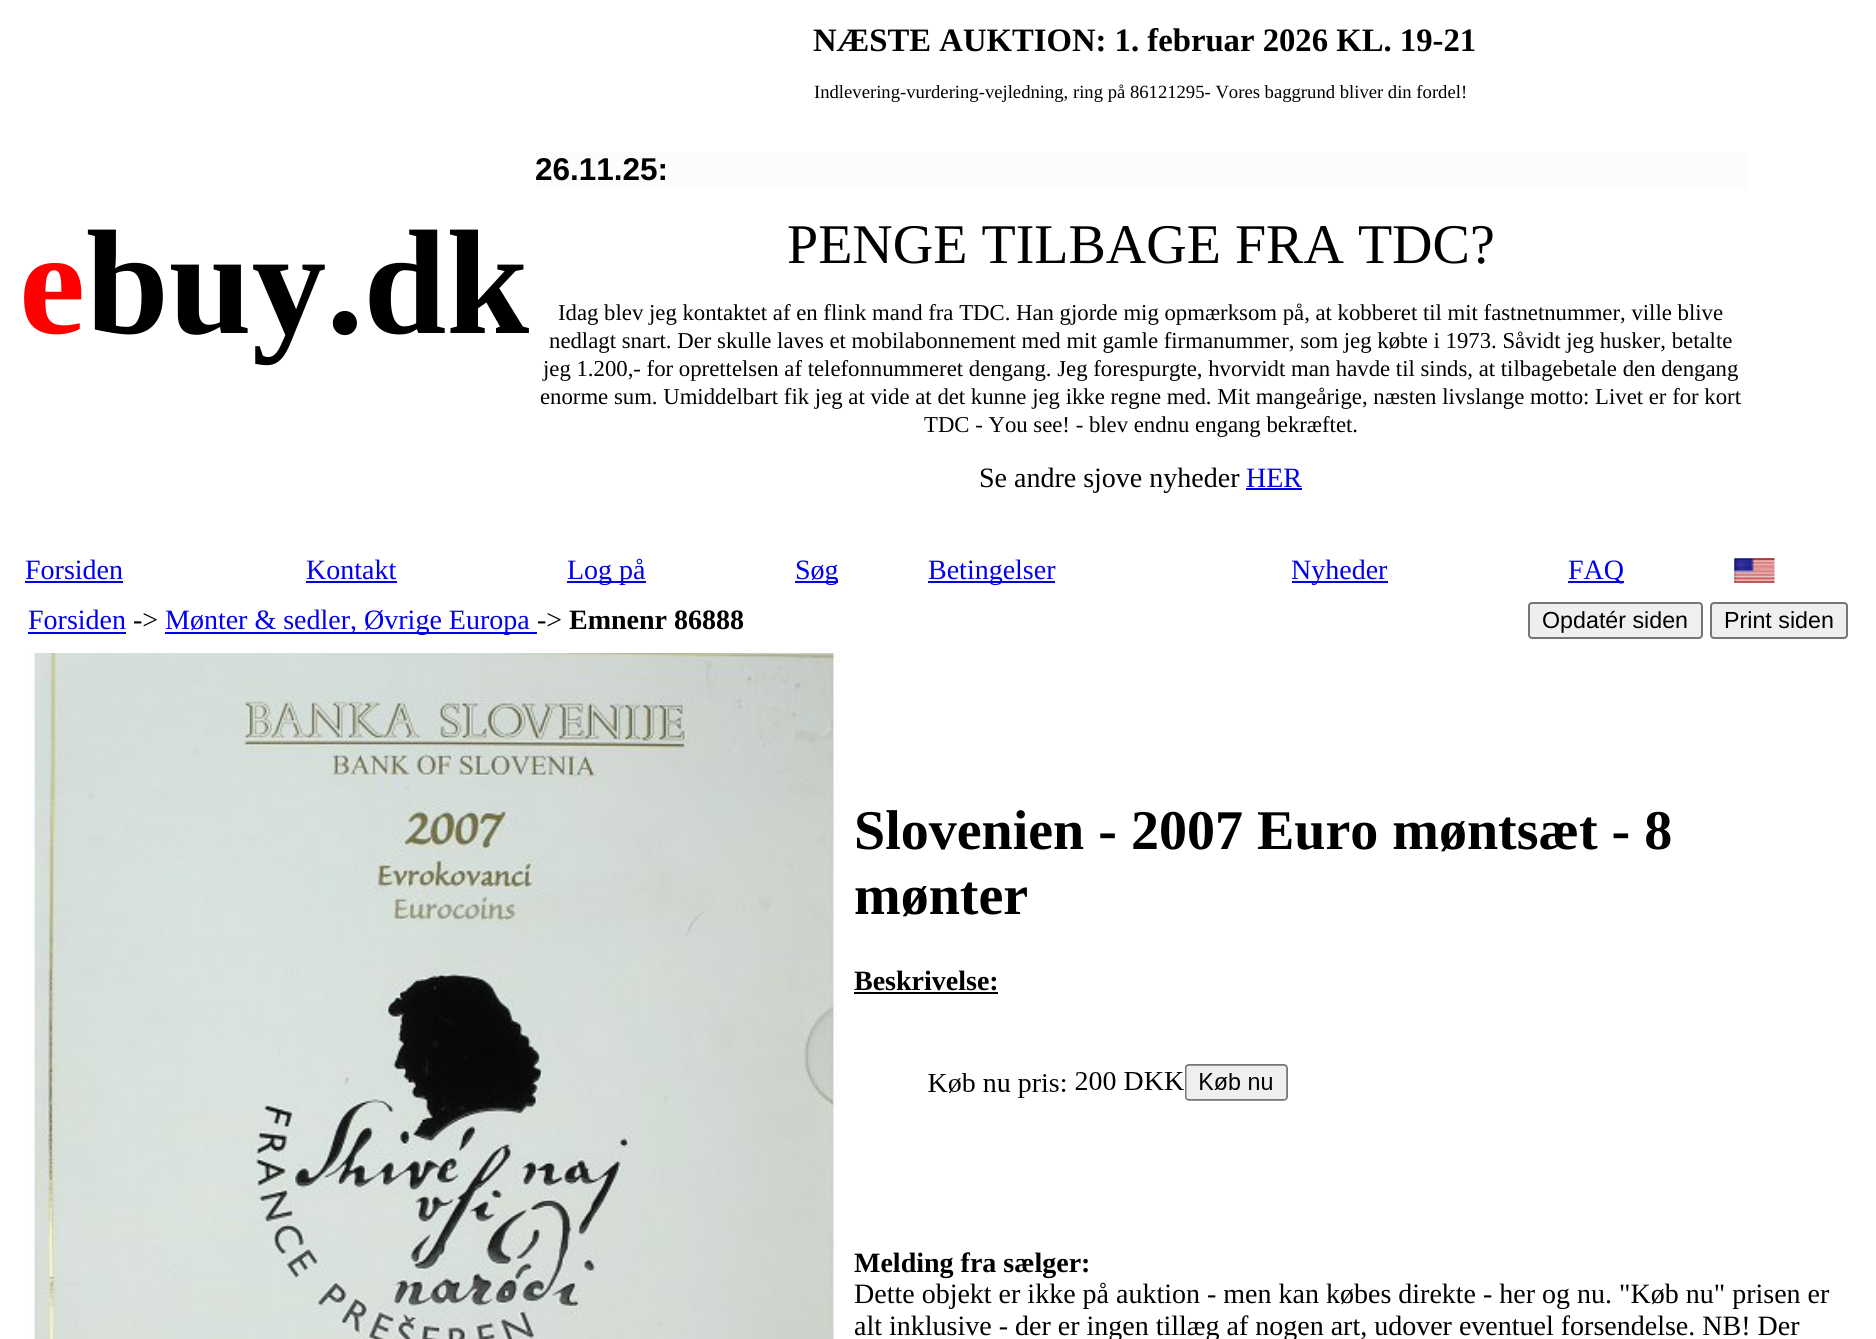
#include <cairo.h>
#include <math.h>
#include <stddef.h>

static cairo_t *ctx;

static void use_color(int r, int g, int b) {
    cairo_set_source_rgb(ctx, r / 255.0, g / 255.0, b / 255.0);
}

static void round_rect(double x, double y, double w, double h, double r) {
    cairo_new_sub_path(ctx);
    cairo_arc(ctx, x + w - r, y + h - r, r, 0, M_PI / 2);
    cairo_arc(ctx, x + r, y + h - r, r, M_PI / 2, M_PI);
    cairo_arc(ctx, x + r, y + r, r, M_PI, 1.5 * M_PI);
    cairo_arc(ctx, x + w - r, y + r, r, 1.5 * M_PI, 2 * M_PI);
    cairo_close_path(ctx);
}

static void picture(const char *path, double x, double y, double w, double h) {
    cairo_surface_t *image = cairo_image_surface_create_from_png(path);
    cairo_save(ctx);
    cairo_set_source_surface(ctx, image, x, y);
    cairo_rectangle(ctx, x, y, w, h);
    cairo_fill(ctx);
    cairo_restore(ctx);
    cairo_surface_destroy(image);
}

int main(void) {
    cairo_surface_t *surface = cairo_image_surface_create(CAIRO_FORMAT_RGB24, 1876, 1339);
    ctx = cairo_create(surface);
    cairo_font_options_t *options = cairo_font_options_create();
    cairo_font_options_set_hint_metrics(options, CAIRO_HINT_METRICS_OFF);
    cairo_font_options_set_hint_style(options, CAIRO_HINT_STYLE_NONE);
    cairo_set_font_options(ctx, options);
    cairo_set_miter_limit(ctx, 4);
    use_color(255, 255, 255);
    cairo_paint(ctx);
    cairo_select_font_face(ctx, "Liberation Serif", CAIRO_FONT_SLANT_NORMAL, CAIRO_FONT_WEIGHT_BOLD);
    cairo_set_font_size(ctx, 149);
    use_color(255, 0, 0);
    cairo_move_to(ctx, 19, 333);
    cairo_show_text(ctx, "e");
    use_color(0, 0, 0);
    cairo_move_to(ctx, 86, 333);
    cairo_show_text(ctx, "buy.dk");
    cairo_set_font_size(ctx, 32.7);
    cairo_move_to(ctx, 813, 51);
    cairo_show_text(ctx, "NÆSTE AUKTION: 1. februar 2026 KL. 19-21");
    cairo_select_font_face(ctx, "Liberation Serif", CAIRO_FONT_SLANT_NORMAL, CAIRO_FONT_WEIGHT_NORMAL);
    cairo_set_font_size(ctx, 18.65);
    cairo_move_to(ctx, 814, 98);
    cairo_show_text(ctx, "Indlevering-vurdering-vejledning, ring på 86121295- Vores baggrund bliver din fordel!");
    use_color(252, 252, 252);
    cairo_rectangle(ctx, 536, 152, 1211, 37);
    cairo_fill(ctx);
    cairo_select_font_face(ctx, "Liberation Sans", CAIRO_FONT_SLANT_NORMAL, CAIRO_FONT_WEIGHT_BOLD);
    cairo_set_font_size(ctx, 31.5);
    use_color(0, 0, 0);
    cairo_move_to(ctx, 535, 180);
    cairo_show_text(ctx, "26.11.25:");
    cairo_select_font_face(ctx, "Liberation Serif", CAIRO_FONT_SLANT_NORMAL, CAIRO_FONT_WEIGHT_NORMAL);
    cairo_set_font_size(ctx, 56);
    cairo_move_to(ctx, 787, 263);
    cairo_show_text(ctx, "PENGE TILBAGE FRA TDC?");
    cairo_set_font_size(ctx, 22.75);
    cairo_move_to(ctx, 558, 320);
    cairo_show_text(ctx, "Idag blev jeg kontaktet af en flink mand fra TDC. Han gjorde mig opmærksom på, at kobberet til mit fastnetnummer, ville blive");
    cairo_move_to(ctx, 549, 348);
    cairo_show_text(ctx, "nedlagt snart. Der skulle laves et mobilabonnement med mit gamle firmanummer, som jeg købte i 1973. Såvidt jeg husker, betalte");
    cairo_move_to(ctx, 543, 376);
    cairo_show_text(ctx, "jeg 1.200,- for oprettelsen af telefonnummeret dengang. Jeg forespurgte, hvorvidt man havde til sinds, at tilbagebetale den dengang");
    cairo_move_to(ctx, 540, 404);
    cairo_show_text(ctx, "enorme sum. Umiddelbart fik jeg at vide at det kunne jeg ikke regne med. Mit mangeårige, næsten livslange motto: Livet er for kort");
    cairo_move_to(ctx, 924, 432);
    cairo_show_text(ctx, "TDC - You see! - blev endnu engang bekræftet.");
    cairo_set_font_size(ctx, 28);
    cairo_move_to(ctx, 979, 487);
    cairo_show_text(ctx, "Se andre sjove nyheder");
    use_color(0, 0, 238);
    cairo_move_to(ctx, 1246, 487);
    cairo_show_text(ctx, "HER");
    cairo_rectangle(ctx, 1246, 488, 56, 2);
    cairo_fill(ctx);
    cairo_move_to(ctx, 25, 579);
    cairo_show_text(ctx, "Forsiden");
    cairo_rectangle(ctx, 25, 581, 98, 2);
    cairo_fill(ctx);
    cairo_move_to(ctx, 306, 579);
    cairo_show_text(ctx, "Kontakt");
    cairo_rectangle(ctx, 306, 581, 91, 2);
    cairo_fill(ctx);
    cairo_rectangle(ctx, 567, 581, 79, 2);
    cairo_fill(ctx);
    cairo_move_to(ctx, 567, 579);
    cairo_show_text(ctx, "Log på");
    cairo_rectangle(ctx, 795, 581, 43, 2);
    cairo_fill(ctx);
    cairo_move_to(ctx, 795, 579);
    cairo_show_text(ctx, "Søg");
    cairo_rectangle(ctx, 928, 581, 127, 2);
    cairo_fill(ctx);
    cairo_move_to(ctx, 928, 579);
    cairo_show_text(ctx, "Betingelser");
    cairo_rectangle(ctx, 1292, 581, 96, 2);
    cairo_fill(ctx);
    cairo_move_to(ctx, 1291, 579);
    cairo_show_text(ctx, "Nyheder");
    cairo_rectangle(ctx, 1568, 581, 56, 2);
    cairo_fill(ctx);
    cairo_move_to(ctx, 1568, 579);
    cairo_show_text(ctx, "FAQ");
    picture("img1.png", 1734, 558, 41, 25);
    cairo_move_to(ctx, 28, 629);
    cairo_show_text(ctx, "Forsiden");
    cairo_rectangle(ctx, 28, 632, 98, 2);
    cairo_fill(ctx);
    use_color(0, 0, 0);
    cairo_move_to(ctx, 133, 629);
    cairo_show_text(ctx, "->");
    use_color(0, 0, 238);
    cairo_rectangle(ctx, 165, 632, 372, 2);
    cairo_fill(ctx);
    cairo_move_to(ctx, 165, 629);
    cairo_show_text(ctx, "Mønter & sedler, Øvrige Europa");
    use_color(0, 0, 0);
    cairo_move_to(ctx, 537, 629);
    cairo_show_text(ctx, "->");
    cairo_select_font_face(ctx, "Liberation Serif", CAIRO_FONT_SLANT_NORMAL, CAIRO_FONT_WEIGHT_BOLD);
    cairo_move_to(ctx, 569, 629);
    cairo_show_text(ctx, "Emnenr 86888");
    use_color(239, 239, 239);
    round_rect(1529, 603, 173, 35, 3);
    cairo_fill_preserve(ctx);
    use_color(118, 118, 118);
    cairo_stroke(ctx);
    cairo_select_font_face(ctx, "Liberation Sans", CAIRO_FONT_SLANT_NORMAL, CAIRO_FONT_WEIGHT_NORMAL);
    cairo_set_font_size(ctx, 23.25);
    use_color(0, 0, 0);
    cairo_move_to(ctx, 1542, 628);
    cairo_show_text(ctx, "Opdatér siden");
    use_color(239, 239, 239);
    round_rect(1711, 603, 136, 35, 3);
    cairo_fill_preserve(ctx);
    use_color(118, 118, 118);
    cairo_stroke(ctx);
    use_color(0, 0, 0);
    cairo_move_to(ctx, 1724, 628);
    cairo_show_text(ctx, "Print siden");
    picture("img2.png", 28, 653, 812, 686);
    cairo_select_font_face(ctx, "Liberation Serif", CAIRO_FONT_SLANT_NORMAL, CAIRO_FONT_WEIGHT_BOLD);
    cairo_set_font_size(ctx, 56);
    cairo_move_to(ctx, 854, 849);
    cairo_show_text(ctx, "Slovenien - 2007 Euro møntsæt - 8");
    cairo_move_to(ctx, 854, 914);
    cairo_show_text(ctx, "mønter");
    cairo_set_font_size(ctx, 28);
    cairo_move_to(ctx, 854, 990);
    cairo_show_text(ctx, "Beskrivelse:");
    cairo_rectangle(ctx, 854, 992, 144, 2);
    cairo_fill(ctx);
    picture("img3.png", 928, 1064, 360, 37);
    cairo_move_to(ctx, 854, 1272);
    cairo_show_text(ctx, "Melding fra sælger:");
    cairo_select_font_face(ctx, "Liberation Serif", CAIRO_FONT_SLANT_NORMAL, CAIRO_FONT_WEIGHT_NORMAL);
    cairo_move_to(ctx, 854, 1303);
    cairo_show_text(ctx, "Dette objekt er ikke på auktion - men kan købes direkte - her og nu. \"Køb nu\" prisen er");
    cairo_move_to(ctx, 854, 1335);
    cairo_show_text(ctx, "alt inklusive - der er ingen tillæg af nogen art, udover eventuel forsendelse. NB! Der");
    cairo_surface_write_to_png(surface, "result.png");
    cairo_font_options_destroy(options);
    cairo_destroy(ctx);
    cairo_surface_destroy(surface);
    return 0;
}
